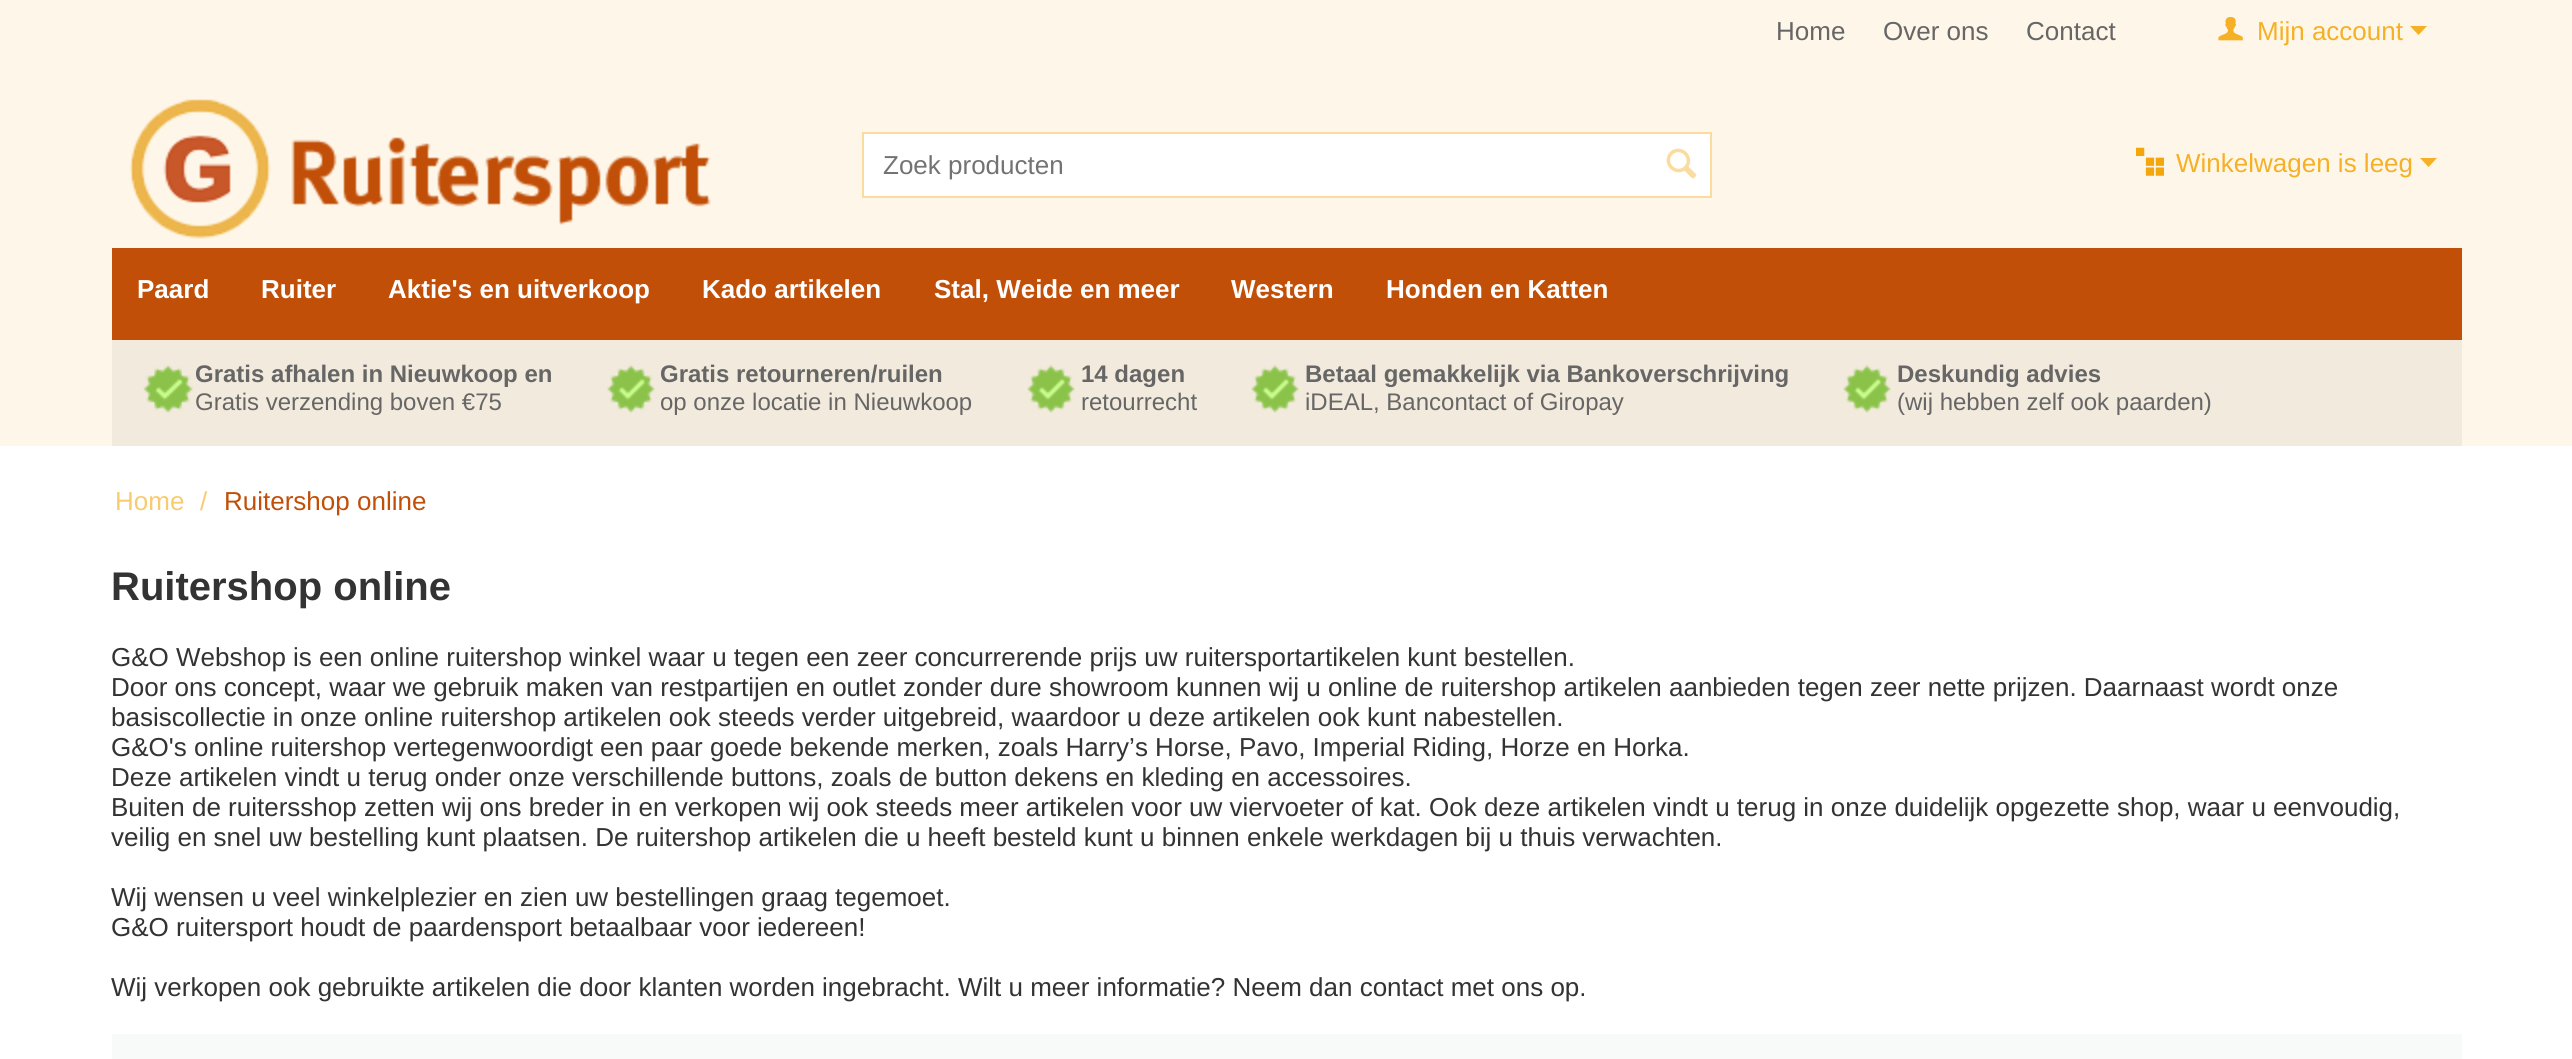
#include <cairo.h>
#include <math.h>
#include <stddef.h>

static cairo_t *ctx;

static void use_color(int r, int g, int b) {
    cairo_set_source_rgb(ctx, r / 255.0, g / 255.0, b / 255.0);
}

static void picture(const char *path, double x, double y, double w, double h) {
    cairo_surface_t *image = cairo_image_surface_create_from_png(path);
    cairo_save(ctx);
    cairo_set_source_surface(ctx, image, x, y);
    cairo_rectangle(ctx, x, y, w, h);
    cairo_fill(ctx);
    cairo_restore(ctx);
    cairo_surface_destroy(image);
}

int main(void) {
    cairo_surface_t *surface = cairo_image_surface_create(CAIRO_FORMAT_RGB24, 2572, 1059);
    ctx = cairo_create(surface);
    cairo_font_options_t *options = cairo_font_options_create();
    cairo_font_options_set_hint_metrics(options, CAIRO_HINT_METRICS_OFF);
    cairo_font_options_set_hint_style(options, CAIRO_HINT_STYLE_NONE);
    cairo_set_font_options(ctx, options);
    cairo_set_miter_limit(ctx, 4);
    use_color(255, 255, 255);
    cairo_paint(ctx);
    use_color(254, 247, 233);
    cairo_rectangle(ctx, 0, 0, 2572, 446);
    cairo_fill(ctx);
    cairo_select_font_face(ctx, "Liberation Sans", CAIRO_FONT_SLANT_NORMAL, CAIRO_FONT_WEIGHT_NORMAL);
    cairo_set_font_size(ctx, 26);
    use_color(102, 102, 102);
    cairo_move_to(ctx, 1776, 40);
    cairo_show_text(ctx, "Home");
    cairo_move_to(ctx, 1883, 40);
    cairo_show_text(ctx, "Over ons");
    cairo_move_to(ctx, 2026, 40);
    cairo_show_text(ctx, "Contact");
    picture("img1.png", 2218, 16, 25, 25);
    use_color(245, 176, 38);
    cairo_move_to(ctx, 2257, 40);
    cairo_show_text(ctx, "Mijn account");
    cairo_new_path(ctx);
    cairo_move_to(ctx, 2418.5, 35);
    cairo_line_to(ctx, 2410, 26);
    cairo_line_to(ctx, 2427, 26);
    cairo_close_path(ctx);
    cairo_fill(ctx);
    picture("img2.png", 129, 99, 582, 140);
    use_color(255, 255, 255);
    cairo_rectangle(ctx, 863, 133, 848, 64);
    cairo_fill_preserve(ctx);
    use_color(251, 220, 160);
    cairo_stroke(ctx);
    use_color(115, 115, 115);
    cairo_move_to(ctx, 883, 174);
    cairo_show_text(ctx, "Zoek producten");
    picture("img3.png", 1666, 148, 31, 31);
    picture("img4.png", 2136, 147, 28, 29);
    use_color(245, 176, 38);
    cairo_move_to(ctx, 2176, 172);
    cairo_show_text(ctx, "Winkelwagen is leeg");
    cairo_new_path(ctx);
    cairo_move_to(ctx, 2428.5, 167);
    cairo_line_to(ctx, 2420, 158);
    cairo_line_to(ctx, 2437, 158);
    cairo_close_path(ctx);
    cairo_fill(ctx);
    use_color(193, 79, 8);
    cairo_rectangle(ctx, 112, 248, 2350, 92);
    cairo_fill(ctx);
    cairo_select_font_face(ctx, "Liberation Sans", CAIRO_FONT_SLANT_NORMAL, CAIRO_FONT_WEIGHT_BOLD);
    use_color(255, 255, 255);
    cairo_move_to(ctx, 137, 298);
    cairo_show_text(ctx, "Paard");
    cairo_move_to(ctx, 261, 298);
    cairo_show_text(ctx, "Ruiter");
    cairo_move_to(ctx, 388, 298);
    cairo_show_text(ctx, "Aktie's en uitverkoop");
    cairo_move_to(ctx, 702, 298);
    cairo_show_text(ctx, "Kado artikelen");
    cairo_move_to(ctx, 934, 298);
    cairo_show_text(ctx, "Stal, Weide en meer");
    cairo_move_to(ctx, 1231, 298);
    cairo_show_text(ctx, "Western");
    cairo_move_to(ctx, 1386, 298);
    cairo_show_text(ctx, "Honden en Katten");
    use_color(242, 234, 221);
    cairo_rectangle(ctx, 112, 340, 2350, 106);
    cairo_fill(ctx);
    picture("img5.png", 143, 365, 50, 48);
    cairo_set_font_size(ctx, 24);
    use_color(102, 102, 102);
    cairo_move_to(ctx, 195, 382);
    cairo_show_text(ctx, "Gratis afhalen in Nieuwkoop en");
    cairo_select_font_face(ctx, "Liberation Sans", CAIRO_FONT_SLANT_NORMAL, CAIRO_FONT_WEIGHT_NORMAL);
    cairo_move_to(ctx, 195, 410);
    cairo_show_text(ctx, "Gratis verzending boven €75");
    picture("img6.png", 607, 365, 48, 48);
    cairo_select_font_face(ctx, "Liberation Sans", CAIRO_FONT_SLANT_NORMAL, CAIRO_FONT_WEIGHT_BOLD);
    cairo_move_to(ctx, 660, 382);
    cairo_show_text(ctx, "Gratis retourneren/ruilen");
    cairo_select_font_face(ctx, "Liberation Sans", CAIRO_FONT_SLANT_NORMAL, CAIRO_FONT_WEIGHT_NORMAL);
    cairo_move_to(ctx, 660, 410);
    cairo_show_text(ctx, "op onze locatie in Nieuwkoop");
    picture("img6.png", 1027, 365, 48, 48);
    cairo_select_font_face(ctx, "Liberation Sans", CAIRO_FONT_SLANT_NORMAL, CAIRO_FONT_WEIGHT_BOLD);
    cairo_move_to(ctx, 1081, 382);
    cairo_show_text(ctx, "14 dagen");
    cairo_select_font_face(ctx, "Liberation Sans", CAIRO_FONT_SLANT_NORMAL, CAIRO_FONT_WEIGHT_NORMAL);
    cairo_move_to(ctx, 1081, 410);
    cairo_show_text(ctx, "retourrecht");
    picture("img6.png", 1251, 365, 48, 48);
    cairo_select_font_face(ctx, "Liberation Sans", CAIRO_FONT_SLANT_NORMAL, CAIRO_FONT_WEIGHT_BOLD);
    cairo_move_to(ctx, 1305, 382);
    cairo_show_text(ctx, "Betaal gemakkelijk via Bankoverschrijving");
    cairo_select_font_face(ctx, "Liberation Sans", CAIRO_FONT_SLANT_NORMAL, CAIRO_FONT_WEIGHT_NORMAL);
    cairo_move_to(ctx, 1305, 410);
    cairo_show_text(ctx, "iDEAL, Bancontact of Giropay");
    picture("img6.png", 1843, 365, 48, 48);
    cairo_select_font_face(ctx, "Liberation Sans", CAIRO_FONT_SLANT_NORMAL, CAIRO_FONT_WEIGHT_BOLD);
    cairo_move_to(ctx, 1897, 382);
    cairo_show_text(ctx, "Deskundig advies");
    cairo_select_font_face(ctx, "Liberation Sans", CAIRO_FONT_SLANT_NORMAL, CAIRO_FONT_WEIGHT_NORMAL);
    cairo_move_to(ctx, 1897, 410);
    cairo_show_text(ctx, "(wij hebben zelf ook paarden)");
    cairo_set_font_size(ctx, 26);
    use_color(248, 203, 111);
    cairo_move_to(ctx, 115, 510);
    cairo_show_text(ctx, "Home");
    cairo_move_to(ctx, 200, 510);
    cairo_show_text(ctx, "/");
    use_color(193, 79, 8);
    cairo_move_to(ctx, 224, 510);
    cairo_show_text(ctx, "Ruitershop online");
    cairo_select_font_face(ctx, "Liberation Sans", CAIRO_FONT_SLANT_NORMAL, CAIRO_FONT_WEIGHT_BOLD);
    cairo_set_font_size(ctx, 40);
    use_color(51, 51, 51);
    cairo_move_to(ctx, 111, 600);
    cairo_show_text(ctx, "Ruitershop online");
    cairo_select_font_face(ctx, "Liberation Sans", CAIRO_FONT_SLANT_NORMAL, CAIRO_FONT_WEIGHT_NORMAL);
    cairo_set_font_size(ctx, 26);
    cairo_move_to(ctx, 111, 666);
    cairo_show_text(ctx, "G&O Webshop is een online ruitershop winkel waar u tegen een zeer concurrerende prijs uw ruitersportartikelen kunt bestellen.");
    cairo_move_to(ctx, 111, 696);
    cairo_show_text(ctx, "Door ons concept, waar we gebruik maken van restpartijen en outlet zonder dure showroom kunnen wij u online de ruitershop artikelen aanbieden tegen zeer nette prijzen. Daarnaast wordt onze");
    cairo_move_to(ctx, 111, 726);
    cairo_show_text(ctx, "basiscollectie in onze online ruitershop artikelen ook steeds verder uitgebreid, waardoor u deze artikelen ook kunt nabestellen.");
    cairo_move_to(ctx, 111, 756);
    cairo_show_text(ctx, "G&O's online ruitershop vertegenwoordigt een paar goede bekende merken, zoals Harry’s Horse, Pavo, Imperial Riding, Horze en Horka.");
    cairo_move_to(ctx, 111, 786);
    cairo_show_text(ctx, "Deze artikelen vindt u terug onder onze verschillende buttons, zoals de button dekens en kleding en accessoires.");
    cairo_move_to(ctx, 111, 816);
    cairo_show_text(ctx, "Buiten de ruitersshop zetten wij ons breder in en verkopen wij ook steeds meer artikelen voor uw viervoeter of kat. Ook deze artikelen vindt u terug in onze duidelijk opgezette shop, waar u eenvoudig,");
    cairo_move_to(ctx, 111, 846);
    cairo_show_text(ctx, "veilig en snel uw bestelling kunt plaatsen. De ruitershop artikelen die u heeft besteld kunt u binnen enkele werkdagen bij u thuis verwachten.");
    cairo_move_to(ctx, 111, 906);
    cairo_show_text(ctx, "Wij wensen u veel winkelplezier en zien uw bestellingen graag tegemoet.");
    cairo_move_to(ctx, 111, 936);
    cairo_show_text(ctx, "G&O ruitersport houdt de paardensport betaalbaar voor iedereen!");
    cairo_move_to(ctx, 111, 996);
    cairo_show_text(ctx, "Wij verkopen ook gebruikte artikelen die door klanten worden ingebracht. Wilt u meer informatie? Neem dan contact met ons op.");
    use_color(248, 249, 249);
    cairo_rectangle(ctx, 112, 1034, 2350, 25);
    cairo_fill(ctx);
    cairo_surface_write_to_png(surface, "result.png");
    cairo_font_options_destroy(options);
    cairo_destroy(ctx);
    cairo_surface_destroy(surface);
    return 0;
}
